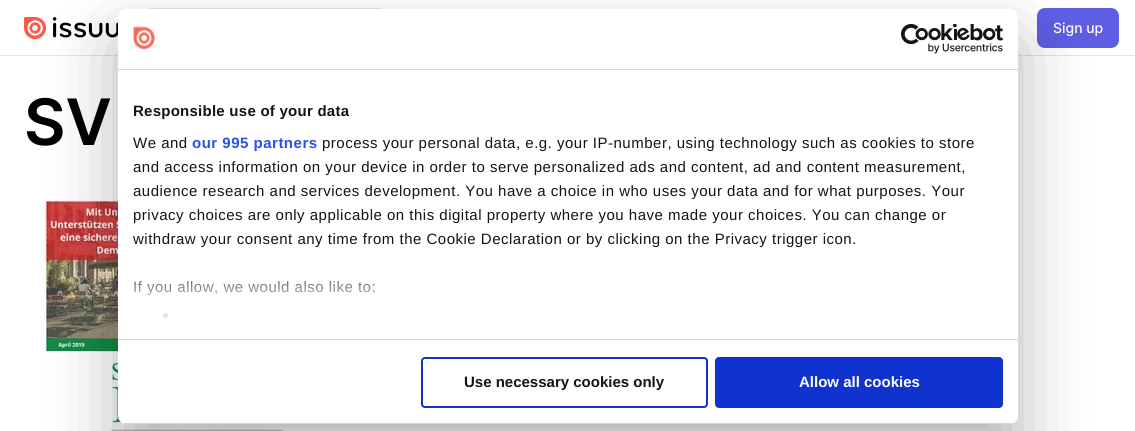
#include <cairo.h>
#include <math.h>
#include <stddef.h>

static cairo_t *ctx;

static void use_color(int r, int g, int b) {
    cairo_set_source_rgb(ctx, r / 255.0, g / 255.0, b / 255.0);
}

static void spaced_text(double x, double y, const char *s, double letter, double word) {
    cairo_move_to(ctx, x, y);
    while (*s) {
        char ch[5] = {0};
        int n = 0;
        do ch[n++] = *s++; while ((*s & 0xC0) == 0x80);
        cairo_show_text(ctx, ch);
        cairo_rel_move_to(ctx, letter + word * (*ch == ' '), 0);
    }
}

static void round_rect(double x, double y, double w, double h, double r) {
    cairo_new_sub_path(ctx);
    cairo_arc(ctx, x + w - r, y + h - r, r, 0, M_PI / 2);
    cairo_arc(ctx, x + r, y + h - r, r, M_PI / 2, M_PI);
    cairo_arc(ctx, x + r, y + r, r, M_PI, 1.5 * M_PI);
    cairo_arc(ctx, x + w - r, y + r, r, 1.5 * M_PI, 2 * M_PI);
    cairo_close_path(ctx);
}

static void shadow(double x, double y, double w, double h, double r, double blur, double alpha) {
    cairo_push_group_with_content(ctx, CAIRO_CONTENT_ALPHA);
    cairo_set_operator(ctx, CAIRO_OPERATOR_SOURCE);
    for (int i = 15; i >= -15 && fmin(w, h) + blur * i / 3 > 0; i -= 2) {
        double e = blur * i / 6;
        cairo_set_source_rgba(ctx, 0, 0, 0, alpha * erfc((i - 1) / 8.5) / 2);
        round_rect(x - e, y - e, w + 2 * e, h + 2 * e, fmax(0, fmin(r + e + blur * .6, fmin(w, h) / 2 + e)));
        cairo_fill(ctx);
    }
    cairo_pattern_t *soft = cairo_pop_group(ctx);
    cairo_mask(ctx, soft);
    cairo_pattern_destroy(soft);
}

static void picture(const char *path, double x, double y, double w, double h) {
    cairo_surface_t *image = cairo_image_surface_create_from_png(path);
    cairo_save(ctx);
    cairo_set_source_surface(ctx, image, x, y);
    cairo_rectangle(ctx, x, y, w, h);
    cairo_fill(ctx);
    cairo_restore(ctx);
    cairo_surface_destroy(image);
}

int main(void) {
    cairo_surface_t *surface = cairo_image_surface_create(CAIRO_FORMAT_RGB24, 1135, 431);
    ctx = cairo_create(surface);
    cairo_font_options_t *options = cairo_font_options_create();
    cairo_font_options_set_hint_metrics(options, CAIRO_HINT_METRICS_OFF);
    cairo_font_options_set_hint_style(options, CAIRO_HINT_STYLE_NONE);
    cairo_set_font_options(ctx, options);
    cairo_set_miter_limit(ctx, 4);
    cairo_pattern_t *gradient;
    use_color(255, 255, 255);
    cairo_paint(ctx);
    use_color(229, 229, 229);
    cairo_rectangle(ctx, 0, 55, 1135, 1);
    cairo_fill(ctx);
    picture("img1.png", 24, 17, 94, 22);
    round_rect(144.5, 8.5, 242, 39, 7.5);
    cairo_set_line_width(ctx, 1);
    cairo_stroke(ctx);
    use_color(95, 93, 228);
    round_rect(1037, 8, 82, 40, 8);
    cairo_fill(ctx);
    cairo_select_font_face(ctx, "Inter Medium", CAIRO_FONT_SLANT_NORMAL, CAIRO_FONT_WEIGHT_NORMAL);
    cairo_set_font_size(ctx, 14);
    use_color(255, 255, 255);
    cairo_move_to(ctx, 1053, 33);
    cairo_show_text(ctx, "Sign up");
    cairo_select_font_face(ctx, "Inter SemiBold", CAIRO_FONT_SLANT_NORMAL, CAIRO_FONT_WEIGHT_NORMAL);
    cairo_set_font_size(ctx, 64);
    use_color(0, 0, 0);
    cairo_move_to(ctx, 24, 145);
    cairo_show_text(ctx, "SV");
    picture("img2.png", 40, 199, 316, 232);
    use_color(0, 0, 0);
    shadow(118, 41, 900, 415, 8, 34, 0.3);
    use_color(255, 255, 255);
    round_rect(118, 9, 900, 415, 8);
    cairo_fill(ctx);
    use_color(214, 214, 214);
    cairo_rectangle(ctx, 118, 69, 900, 1);
    cairo_fill(ctx);
    picture("img3.png", 133, 26, 22, 24);
    picture("img4.png", 901, 24, 102, 30);
    cairo_rectangle(ctx, 118, 339, 900, 1);
    cairo_fill(ctx);
    cairo_select_font_face(ctx, "Liberation Sans", CAIRO_FONT_SLANT_NORMAL, CAIRO_FONT_WEIGHT_BOLD);
    cairo_set_font_size(ctx, 15);
    use_color(20, 20, 20);
    spaced_text(133, 116, "Responsible use of your data", 0.25, 0);
    cairo_select_font_face(ctx, "Liberation Sans", CAIRO_FONT_SLANT_NORMAL, CAIRO_FONT_WEIGHT_NORMAL);
    spaced_text(133, 148, "We and", 0.5, 0);
    cairo_select_font_face(ctx, "Liberation Sans", CAIRO_FONT_SLANT_NORMAL, CAIRO_FONT_WEIGHT_BOLD);
    use_color(42, 78, 239);
    spaced_text(192, 148, "our 995 partners", 0.5, 0);
    cairo_select_font_face(ctx, "Liberation Sans", CAIRO_FONT_SLANT_NORMAL, CAIRO_FONT_WEIGHT_NORMAL);
    use_color(20, 20, 20);
    spaced_text(322, 148, "process your personal data, e.g. your IP-number, using technology such as cookies to store", 0.5, 0);
    spaced_text(133, 172, "and access information on your device in order to serve personalized ads and content, ad and content measurement,", 0.5, 0);
    spaced_text(133, 196, "audience research and services development. You have a choice in who uses your data and for what purposes. Your", 0.5, 0);
    spaced_text(133, 220, "privacy choices are only applicable on this digital property where you have made your choices. You can change or", 0.5, 0);
    spaced_text(133, 244, "withdraw your consent any time from the Cookie Declaration or by clicking on the Privacy trigger icon.", 0.5, 0);
    spaced_text(133, 292, "If you allow, we would also like to:", 0.5, 0);
    cairo_new_path(ctx);
    cairo_arc(ctx, 165.5, 315.5, 2.5, 0, 2 * M_PI);
    cairo_fill(ctx);
    gradient = cairo_pattern_create_linear(562, 339, 562, 264);
    cairo_pattern_add_color_stop_rgba(gradient, 0, 1, 1, 1, 1);
    cairo_pattern_add_color_stop_rgba(gradient, 0.5, 1, 1, 1, 0.8);
    cairo_pattern_add_color_stop_rgba(gradient, 1, 1, 1, 1, 0);
    cairo_set_source(ctx, gradient);
    cairo_pattern_destroy(gradient);
    cairo_rectangle(ctx, 133, 281, 241, 37);
    cairo_fill(ctx);
    cairo_save(ctx);
    round_rect(118, 9, 900, 415, 8);
    cairo_clip(ctx);
    use_color(214, 214, 214);
    cairo_rectangle(ctx, 118, 423, 900, 1);
    cairo_fill(ctx);
    cairo_restore(ctx);
    round_rect(422, 358, 285, 49, 3);
    use_color(16, 50, 207);
    cairo_set_line_width(ctx, 2);
    cairo_stroke(ctx);
    cairo_select_font_face(ctx, "Liberation Sans", CAIRO_FONT_SLANT_NORMAL, CAIRO_FONT_WEIGHT_BOLD);
    use_color(20, 20, 20);
    cairo_move_to(ctx, 464, 387);
    cairo_show_text(ctx, "Use necessary cookies only");
    use_color(16, 50, 207);
    round_rect(716, 358, 286, 49, 3);
    cairo_fill_preserve(ctx);
    cairo_stroke(ctx);
    use_color(255, 255, 255);
    cairo_move_to(ctx, 799, 387);
    cairo_show_text(ctx, "Allow all cookies");
    cairo_surface_write_to_png(surface, "result.png");
    cairo_font_options_destroy(options);
    cairo_destroy(ctx);
    cairo_surface_destroy(surface);
    return 0;
}
